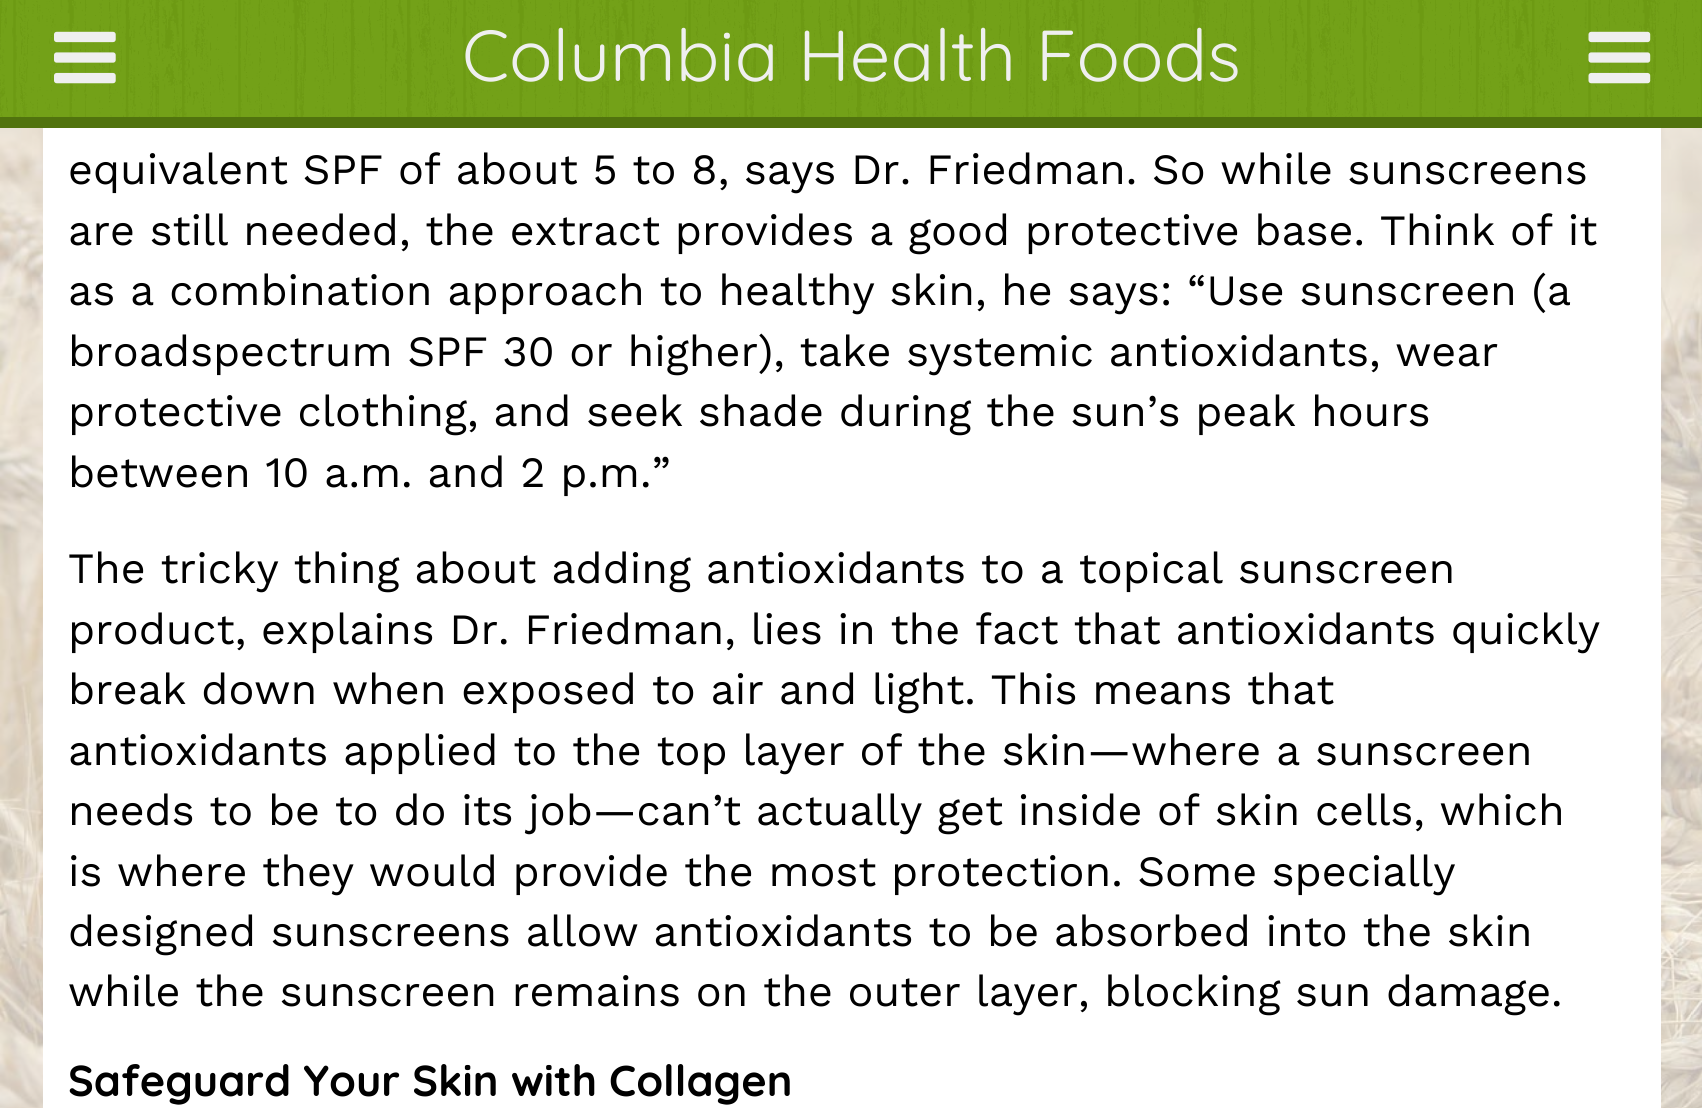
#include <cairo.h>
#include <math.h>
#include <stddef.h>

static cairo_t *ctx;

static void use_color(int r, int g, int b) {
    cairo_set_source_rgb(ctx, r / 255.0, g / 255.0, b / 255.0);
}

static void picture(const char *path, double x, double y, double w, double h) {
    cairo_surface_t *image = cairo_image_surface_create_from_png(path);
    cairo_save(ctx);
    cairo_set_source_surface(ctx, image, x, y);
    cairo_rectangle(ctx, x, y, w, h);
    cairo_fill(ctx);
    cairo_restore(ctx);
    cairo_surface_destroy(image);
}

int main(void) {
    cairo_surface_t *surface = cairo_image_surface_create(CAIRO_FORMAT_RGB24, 1702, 1108);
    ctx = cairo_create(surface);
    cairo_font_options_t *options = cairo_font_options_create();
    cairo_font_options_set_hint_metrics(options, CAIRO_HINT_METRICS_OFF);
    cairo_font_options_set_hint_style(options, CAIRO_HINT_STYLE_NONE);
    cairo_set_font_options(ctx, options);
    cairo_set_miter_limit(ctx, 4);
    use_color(255, 255, 255);
    cairo_paint(ctx);
    picture("img1.png", 0, 128, 1702, 980);
    use_color(113, 160, 20);
    cairo_rectangle(ctx, 0, 0, 1702, 117);
    cairo_fill(ctx);
    picture("img2.png", 0, 0, 1702, 117);
    use_color(81, 115, 14);
    cairo_rectangle(ctx, 0, 117, 1702, 11);
    cairo_fill(ctx);
    picture("img3.png", 54, 31, 62, 53);
    cairo_select_font_face(ctx, "Quicksand", CAIRO_FONT_SLANT_NORMAL, CAIRO_FONT_WEIGHT_NORMAL);
    cairo_set_font_size(ctx, 72);
    use_color(239, 239, 239);
    cairo_move_to(ctx, 462, 81);
    cairo_show_text(ctx, "Columbia Health Foods");
    picture("img4.png", 1588, 31, 63, 53);
    use_color(255, 255, 255);
    cairo_rectangle(ctx, 43, 128, 1618, 980);
    cairo_fill(ctx);
    cairo_select_font_face(ctx, "Work Sans", CAIRO_FONT_SLANT_NORMAL, CAIRO_FONT_WEIGHT_NORMAL);
    cairo_set_font_size(ctx, 43.2);
    use_color(0, 0, 0);
    cairo_move_to(ctx, 68, 184);
    cairo_show_text(ctx, "equivalent SPF of about 5 to 8, says Dr. Friedman. So while sunscreens");
    cairo_move_to(ctx, 68, 245);
    cairo_show_text(ctx, "are still needed, the extract provides a good protective base. Think of it");
    cairo_move_to(ctx, 68, 305);
    cairo_show_text(ctx, "as a combination approach to healthy skin, he says: “Use sunscreen (a");
    cairo_move_to(ctx, 68, 366);
    cairo_show_text(ctx, "broadspectrum SPF 30 or higher), take systemic antioxidants, wear");
    cairo_move_to(ctx, 68, 426);
    cairo_show_text(ctx, "protective clothing, and seek shade during the sun’s peak hours");
    cairo_move_to(ctx, 68, 487);
    cairo_show_text(ctx, "between 10 a.m. and 2 p.m.”");
    cairo_move_to(ctx, 68, 583);
    cairo_show_text(ctx, "The tricky thing about adding antioxidants to a topical sunscreen");
    cairo_move_to(ctx, 68, 644);
    cairo_show_text(ctx, "product, explains Dr. Friedman, lies in the fact that antioxidants quickly");
    cairo_move_to(ctx, 68, 704);
    cairo_show_text(ctx, "break down when exposed to air and light. This means that");
    cairo_move_to(ctx, 68, 765);
    cairo_show_text(ctx, "antioxidants applied to the top layer of the skin—where a sunscreen");
    cairo_move_to(ctx, 68, 825);
    cairo_show_text(ctx, "needs to be to do its job—can’t actually get inside of skin cells, which");
    cairo_move_to(ctx, 68, 886);
    cairo_show_text(ctx, "is where they would provide the most protection. Some specially");
    cairo_move_to(ctx, 68, 946);
    cairo_show_text(ctx, "designed sunscreens allow antioxidants to be absorbed into the skin");
    cairo_move_to(ctx, 68, 1006);
    cairo_show_text(ctx, "while the sunscreen remains on the outer layer, blocking sun damage.");
    cairo_select_font_face(ctx, "Quicksand", CAIRO_FONT_SLANT_NORMAL, CAIRO_FONT_WEIGHT_BOLD);
    cairo_move_to(ctx, 68, 1096);
    cairo_show_text(ctx, "Safeguard Your Skin with Collagen");
    cairo_surface_write_to_png(surface, "result.png");
    cairo_font_options_destroy(options);
    cairo_destroy(ctx);
    cairo_surface_destroy(surface);
    return 0;
}
